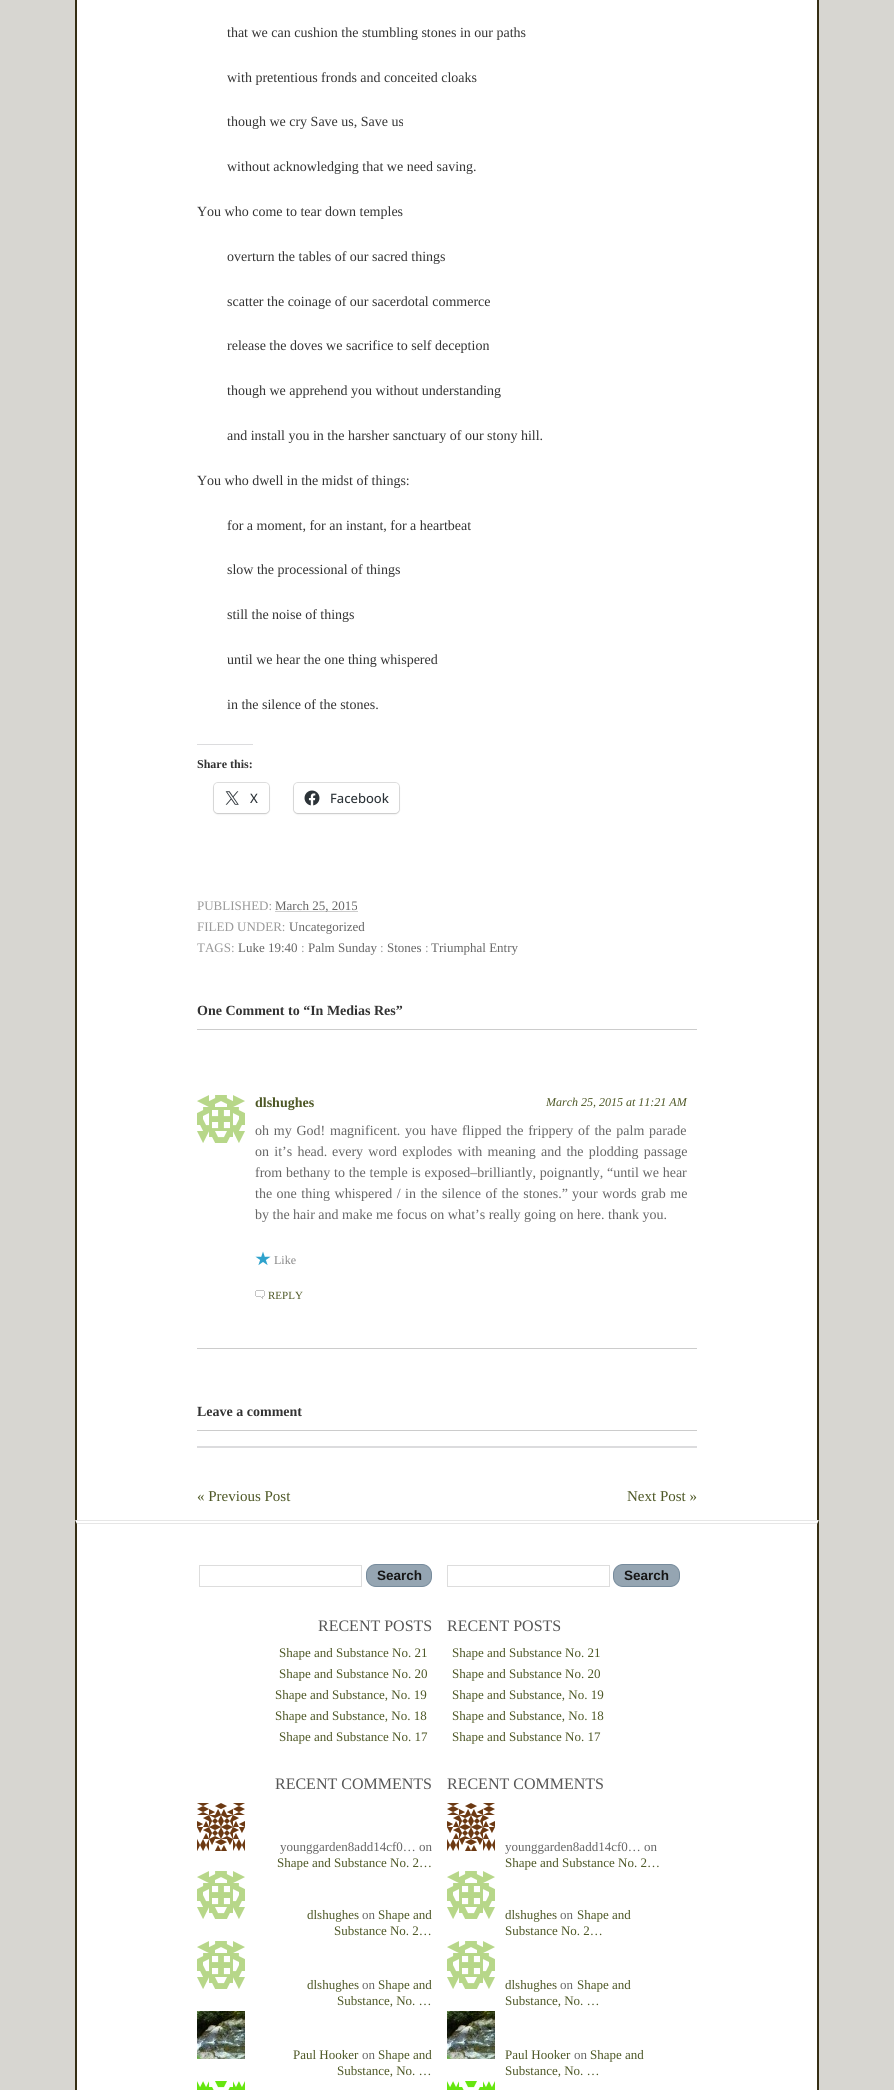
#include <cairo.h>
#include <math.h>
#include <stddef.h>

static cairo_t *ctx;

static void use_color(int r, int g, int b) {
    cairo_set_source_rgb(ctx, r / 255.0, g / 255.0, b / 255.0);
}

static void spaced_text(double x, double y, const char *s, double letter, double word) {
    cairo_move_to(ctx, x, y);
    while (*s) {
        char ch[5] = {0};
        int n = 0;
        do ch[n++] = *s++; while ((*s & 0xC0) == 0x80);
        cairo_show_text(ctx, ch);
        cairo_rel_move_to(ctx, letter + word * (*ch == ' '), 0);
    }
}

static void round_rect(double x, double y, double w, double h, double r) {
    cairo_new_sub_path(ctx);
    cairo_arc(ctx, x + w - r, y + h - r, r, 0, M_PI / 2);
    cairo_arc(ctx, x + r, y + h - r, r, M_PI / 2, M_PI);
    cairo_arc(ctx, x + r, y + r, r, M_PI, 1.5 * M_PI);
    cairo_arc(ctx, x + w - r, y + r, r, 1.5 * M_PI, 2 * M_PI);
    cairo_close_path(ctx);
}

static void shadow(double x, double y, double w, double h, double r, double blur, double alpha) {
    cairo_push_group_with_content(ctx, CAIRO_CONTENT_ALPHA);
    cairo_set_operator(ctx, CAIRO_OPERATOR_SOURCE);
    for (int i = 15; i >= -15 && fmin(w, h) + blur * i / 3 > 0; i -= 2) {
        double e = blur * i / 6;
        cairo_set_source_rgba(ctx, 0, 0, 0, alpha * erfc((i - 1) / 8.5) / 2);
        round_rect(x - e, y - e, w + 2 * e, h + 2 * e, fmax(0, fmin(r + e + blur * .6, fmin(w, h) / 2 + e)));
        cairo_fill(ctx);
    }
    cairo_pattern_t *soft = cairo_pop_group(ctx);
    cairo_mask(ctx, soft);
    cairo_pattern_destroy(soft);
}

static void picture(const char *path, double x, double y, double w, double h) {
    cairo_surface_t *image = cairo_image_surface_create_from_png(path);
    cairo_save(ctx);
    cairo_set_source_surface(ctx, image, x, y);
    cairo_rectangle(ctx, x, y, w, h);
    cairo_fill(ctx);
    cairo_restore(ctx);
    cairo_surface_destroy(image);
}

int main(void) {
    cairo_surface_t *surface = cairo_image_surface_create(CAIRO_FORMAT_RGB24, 894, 2090);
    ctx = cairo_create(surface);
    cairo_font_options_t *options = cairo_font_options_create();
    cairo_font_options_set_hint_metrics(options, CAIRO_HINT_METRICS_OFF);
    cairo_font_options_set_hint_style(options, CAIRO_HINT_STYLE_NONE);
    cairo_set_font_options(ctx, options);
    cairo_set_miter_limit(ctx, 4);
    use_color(215, 214, 209);
    cairo_paint(ctx);
    use_color(255, 255, 255);
    cairo_rectangle(ctx, 77, 0, 740, 1520);
    cairo_fill(ctx);
    use_color(53, 46, 20);
    cairo_rectangle(ctx, 817, 0, 2, 1520);
    cairo_fill(ctx);
    cairo_rectangle(ctx, 75, 0, 2, 1520);
    cairo_fill(ctx);
    cairo_select_font_face(ctx, "Liberation Serif", CAIRO_FONT_SLANT_NORMAL, CAIRO_FONT_WEIGHT_NORMAL);
    cairo_set_font_size(ctx, 14);
    use_color(51, 51, 51);
    cairo_move_to(ctx, 227, 37);
    cairo_show_text(ctx, "that we can cushion the stumbling stones in our paths");
    cairo_move_to(ctx, 227, 82);
    cairo_show_text(ctx, "with pretentious fronds and conceited cloaks");
    cairo_move_to(ctx, 227, 126);
    cairo_show_text(ctx, "though we cry Save us, Save us");
    cairo_move_to(ctx, 227, 171);
    cairo_show_text(ctx, "without acknowledging that we need saving.");
    cairo_move_to(ctx, 197, 216);
    cairo_show_text(ctx, "You who come to tear down temples");
    cairo_move_to(ctx, 227, 261);
    cairo_show_text(ctx, "overturn the tables of our sacred things");
    cairo_move_to(ctx, 227, 306);
    cairo_show_text(ctx, "scatter the coinage of our sacerdotal commerce");
    cairo_move_to(ctx, 227, 350);
    cairo_show_text(ctx, "release the doves we sacrifice to self deception");
    cairo_move_to(ctx, 227, 395);
    cairo_show_text(ctx, "though we apprehend you without understanding");
    cairo_move_to(ctx, 227, 440);
    cairo_show_text(ctx, "and install you in the harsher sanctuary of our stony hill.");
    cairo_move_to(ctx, 197, 485);
    cairo_show_text(ctx, "You who dwell in the midst of things:");
    cairo_move_to(ctx, 227, 530);
    cairo_show_text(ctx, "for a moment, for an instant, for a heartbeat");
    cairo_move_to(ctx, 227, 574);
    cairo_show_text(ctx, "slow the processional of things");
    cairo_move_to(ctx, 227, 619);
    cairo_show_text(ctx, "still the noise of things");
    cairo_move_to(ctx, 227, 664);
    cairo_show_text(ctx, "until we hear the one thing whispered");
    cairo_move_to(ctx, 227, 709);
    cairo_show_text(ctx, "in the silence of the stones.");
    use_color(220, 220, 222);
    cairo_rectangle(ctx, 197, 744, 56, 1);
    cairo_fill(ctx);
    cairo_select_font_face(ctx, "Liberation Serif", CAIRO_FONT_SLANT_NORMAL, CAIRO_FONT_WEIGHT_BOLD);
    cairo_set_font_size(ctx, 12);
    use_color(51, 51, 51);
    cairo_move_to(ctx, 197, 768);
    cairo_show_text(ctx, "Share this:");
    round_rect(213.5, 782.5, 56, 31, 4.5);
    use_color(224, 224, 224);
    cairo_set_line_width(ctx, 1);
    cairo_stroke(ctx);
    use_color(0, 0, 0);
    shadow(214, 784, 55, 30, 4, 1, 0.12);
    use_color(255, 255, 255);
    round_rect(214, 783, 55, 30, 4);
    cairo_fill(ctx);
    picture("img1.png", 225, 791, 14, 14);
    cairo_select_font_face(ctx, "Open Sans Medium", CAIRO_FONT_SLANT_NORMAL, CAIRO_FONT_WEIGHT_NORMAL);
    cairo_set_font_size(ctx, 13);
    use_color(44, 51, 56);
    cairo_move_to(ctx, 250, 803);
    cairo_show_text(ctx, "X");
    round_rect(293.5, 782.5, 106, 31, 4.5);
    use_color(224, 224, 224);
    cairo_stroke(ctx);
    use_color(0, 0, 0);
    shadow(294, 784, 105, 30, 4, 1, 0.12);
    use_color(255, 255, 255);
    round_rect(294, 783, 105, 30, 4);
    cairo_fill(ctx);
    picture("img2.png", 304, 790, 16, 16);
    use_color(44, 51, 56);
    cairo_move_to(ctx, 330, 803);
    cairo_show_text(ctx, "Facebook");
    cairo_select_font_face(ctx, "Liberation Serif", CAIRO_FONT_SLANT_NORMAL, CAIRO_FONT_WEIGHT_NORMAL);
    use_color(153, 153, 153);
    cairo_move_to(ctx, 197, 910);
    cairo_show_text(ctx, "PUBLISHED:");
    cairo_new_path(ctx);
    cairo_move_to(ctx, 275.5, 911.5);
    cairo_line_to(ctx, 358, 911.5);
    cairo_set_dash(ctx, (double[]){1, 1}, 2, 0);
    cairo_stroke(ctx);
    use_color(102, 102, 102);
    cairo_move_to(ctx, 275, 910);
    cairo_show_text(ctx, "March 25, 2015");
    use_color(153, 153, 153);
    cairo_move_to(ctx, 197, 931);
    cairo_show_text(ctx, "FILED UNDER:");
    use_color(102, 102, 102);
    cairo_move_to(ctx, 289, 931);
    cairo_show_text(ctx, "Uncategorized");
    use_color(153, 153, 153);
    cairo_move_to(ctx, 197, 952);
    cairo_show_text(ctx, "TAGS:");
    use_color(102, 102, 102);
    cairo_move_to(ctx, 238, 952);
    cairo_show_text(ctx, "Luke 19:40");
    use_color(153, 153, 153);
    cairo_move_to(ctx, 301, 952);
    cairo_show_text(ctx, ":");
    use_color(102, 102, 102);
    cairo_move_to(ctx, 308, 952);
    cairo_show_text(ctx, "Palm Sunday");
    use_color(153, 153, 153);
    cairo_move_to(ctx, 380, 952);
    cairo_show_text(ctx, ":");
    use_color(102, 102, 102);
    cairo_move_to(ctx, 387, 952);
    cairo_show_text(ctx, "Stones");
    use_color(153, 153, 153);
    cairo_move_to(ctx, 425, 952);
    cairo_show_text(ctx, ":");
    use_color(102, 102, 102);
    cairo_move_to(ctx, 431, 952);
    cairo_show_text(ctx, "Triumphal Entry");
    use_color(204, 204, 204);
    cairo_rectangle(ctx, 197, 1029, 500, 1);
    cairo_fill(ctx);
    cairo_select_font_face(ctx, "Liberation Serif", CAIRO_FONT_SLANT_NORMAL, CAIRO_FONT_WEIGHT_BOLD);
    cairo_set_font_size(ctx, 14);
    use_color(51, 51, 51);
    cairo_move_to(ctx, 197, 1015);
    cairo_show_text(ctx, "One Comment to “In Medias Res”");
    use_color(204, 204, 204);
    cairo_rectangle(ctx, 197, 1348, 500, 1);
    cairo_fill(ctx);
    picture("img3.png", 197, 1095, 48, 48);
    use_color(77, 87, 37);
    cairo_move_to(ctx, 255, 1107);
    cairo_show_text(ctx, "dlshughes");
    cairo_select_font_face(ctx, "Liberation Serif", CAIRO_FONT_SLANT_ITALIC, CAIRO_FONT_WEIGHT_NORMAL);
    cairo_set_font_size(ctx, 12);
    cairo_move_to(ctx, 546, 1106);
    cairo_show_text(ctx, "March 25, 2015 at 11:21 AM");
    cairo_select_font_face(ctx, "Liberation Serif", CAIRO_FONT_SLANT_NORMAL, CAIRO_FONT_WEIGHT_NORMAL);
    cairo_set_font_size(ctx, 14);
    use_color(102, 102, 102);
    spaced_text(255, 1135, "oh my God!", 0, 1.25);
    cairo_move_to(ctx, 330, 1135);
    cairo_show_text(ctx, "magnificent.");
    spaced_text(405, 1135, "you have flipped the frippery of the palm parade", 0, 1.25);
    spaced_text(255, 1156, "on it’s head.", 0, 1.75);
    spaced_text(332, 1156, "every word explodes with meaning and the plodding passage", 0, 1.75);
    spaced_text(255, 1177, "from bethany to the temple is exposed–brilliantly, poignantly, “until we hear", 0, 0.25);
    spaced_text(255, 1198, "the one thing whispered / in the silence of the stones.”", 0, 1);
    spaced_text(572, 1198, "your words grab me", 0, 1);
    cairo_move_to(ctx, 255, 1219);
    cairo_show_text(ctx, "by the hair and make me focus on what’s really going on here. thank you.");
    picture("img4.png", 255, 1251, 16, 15);
    cairo_set_font_size(ctx, 12);
    use_color(133, 133, 133);
    cairo_move_to(ctx, 274, 1264);
    cairo_show_text(ctx, "Like");
    picture("img5.png", 255, 1290, 10, 9);
    cairo_set_font_size(ctx, 11);
    use_color(77, 87, 37);
    cairo_move_to(ctx, 268, 1299);
    cairo_show_text(ctx, "REPLY");
    use_color(204, 204, 204);
    cairo_rectangle(ctx, 197, 1430, 500, 1);
    cairo_fill(ctx);
    cairo_select_font_face(ctx, "Liberation Serif", CAIRO_FONT_SLANT_NORMAL, CAIRO_FONT_WEIGHT_BOLD);
    cairo_set_font_size(ctx, 14);
    use_color(51, 51, 51);
    cairo_move_to(ctx, 197, 1416);
    cairo_show_text(ctx, "Leave a comment");
    use_color(220, 220, 222);
    cairo_rectangle(ctx, 197, 1446, 500, 2);
    cairo_fill(ctx);
    cairo_select_font_face(ctx, "Liberation Serif", CAIRO_FONT_SLANT_NORMAL, CAIRO_FONT_WEIGHT_NORMAL);
    cairo_set_font_size(ctx, 15);
    use_color(77, 87, 37);
    cairo_move_to(ctx, 197, 1501);
    cairo_show_text(ctx, "« Previous Post");
    cairo_move_to(ctx, 627, 1501);
    cairo_show_text(ctx, "Next Post »");
    use_color(255, 255, 255);
    cairo_rectangle(ctx, 75, 1521, 744, 569);
    cairo_fill(ctx);
    use_color(230, 230, 230);
    cairo_rectangle(ctx, 75, 1520, 744, 1);
    cairo_fill(ctx);
    cairo_rectangle(ctx, 75, 1523, 744, 1);
    cairo_fill(ctx);
    use_color(53, 46, 20);
    cairo_new_path(ctx);
    cairo_move_to(ctx, 819, 1520);
    cairo_line_to(ctx, 819, 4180);
    cairo_line_to(ctx, 817, 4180);
    cairo_line_to(ctx, 817, 1524);
    cairo_close_path(ctx);
    cairo_fill(ctx);
    cairo_new_path(ctx);
    cairo_move_to(ctx, 75, 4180);
    cairo_line_to(ctx, 75, 1520);
    cairo_line_to(ctx, 77, 1524);
    cairo_line_to(ctx, 77, 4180);
    cairo_close_path(ctx);
    cairo_fill(ctx);
    cairo_rectangle(ctx, 199.5, 1565.5, 162, 21);
    use_color(221, 221, 221);
    cairo_set_dash(ctx, NULL, 0, 0);
    cairo_stroke(ctx);
    use_color(149, 165, 178);
    round_rect(366.5, 1564.5, 65, 22, 9.5);
    cairo_fill_preserve(ctx);
    use_color(118, 139, 156);
    cairo_stroke(ctx);
    cairo_select_font_face(ctx, "Liberation Sans", CAIRO_FONT_SLANT_NORMAL, CAIRO_FONT_WEIGHT_BOLD);
    cairo_set_font_size(ctx, 13.5);
    use_color(22, 22, 22);
    cairo_move_to(ctx, 377, 1580);
    cairo_show_text(ctx, "Search");
    cairo_select_font_face(ctx, "Liberation Serif", CAIRO_FONT_SLANT_NORMAL, CAIRO_FONT_WEIGHT_NORMAL);
    cairo_set_font_size(ctx, 16);
    use_color(85, 85, 85);
    cairo_move_to(ctx, 318, 1631);
    cairo_show_text(ctx, "RECENT POSTS");
    cairo_set_font_size(ctx, 13);
    use_color(77, 87, 37);
    cairo_move_to(ctx, 279, 1657);
    cairo_show_text(ctx, "Shape and Substance No. 21");
    cairo_move_to(ctx, 279, 1678);
    cairo_show_text(ctx, "Shape and Substance No. 20");
    cairo_move_to(ctx, 275, 1699);
    cairo_show_text(ctx, "Shape and Substance, No. 19");
    cairo_move_to(ctx, 275, 1720);
    cairo_show_text(ctx, "Shape and Substance, No. 18");
    cairo_move_to(ctx, 279, 1741);
    cairo_show_text(ctx, "Shape and Substance No. 17");
    cairo_set_font_size(ctx, 16);
    use_color(85, 85, 85);
    cairo_move_to(ctx, 275, 1789);
    cairo_show_text(ctx, "RECENT COMMENTS");
    picture("img6.png", 197, 1803, 48, 48);
    cairo_set_font_size(ctx, 13);
    use_color(102, 102, 102);
    cairo_move_to(ctx, 280, 1851);
    cairo_show_text(ctx, "younggarden8add14cf0… on");
    use_color(77, 87, 37);
    cairo_move_to(ctx, 277, 1867);
    cairo_show_text(ctx, "Shape and Substance No. 2…");
    picture("img3.png", 197, 1871, 48, 48);
    cairo_move_to(ctx, 307, 1919);
    cairo_show_text(ctx, "dlshughes");
    use_color(102, 102, 102);
    cairo_move_to(ctx, 362, 1919);
    cairo_show_text(ctx, "on");
    use_color(77, 87, 37);
    cairo_move_to(ctx, 378, 1919);
    cairo_show_text(ctx, "Shape and");
    cairo_move_to(ctx, 334, 1935);
    cairo_show_text(ctx, "Substance No. 2…");
    picture("img3.png", 197, 1941, 48, 48);
    cairo_move_to(ctx, 307, 1989);
    cairo_show_text(ctx, "dlshughes");
    use_color(102, 102, 102);
    cairo_move_to(ctx, 362, 1989);
    cairo_show_text(ctx, "on");
    use_color(77, 87, 37);
    cairo_move_to(ctx, 378, 1989);
    cairo_show_text(ctx, "Shape and");
    cairo_move_to(ctx, 337, 2005);
    cairo_show_text(ctx, "Substance, No. …");
    picture("img7.png", 197, 2011, 48, 48);
    cairo_move_to(ctx, 293, 2059);
    cairo_show_text(ctx, "Paul Hooker");
    use_color(102, 102, 102);
    cairo_move_to(ctx, 362, 2059);
    cairo_show_text(ctx, "on");
    use_color(77, 87, 37);
    cairo_move_to(ctx, 378, 2059);
    cairo_show_text(ctx, "Shape and");
    cairo_move_to(ctx, 337, 2075);
    cairo_show_text(ctx, "Substance, No. …");
    picture("img8.png", 197, 2081, 48, 9);
    cairo_rectangle(ctx, 447.5, 1565.5, 162, 21);
    use_color(221, 221, 221);
    cairo_stroke(ctx);
    use_color(149, 165, 178);
    round_rect(613.5, 1564.5, 66, 22, 9.5);
    cairo_fill_preserve(ctx);
    use_color(118, 139, 156);
    cairo_stroke(ctx);
    cairo_select_font_face(ctx, "Liberation Sans", CAIRO_FONT_SLANT_NORMAL, CAIRO_FONT_WEIGHT_BOLD);
    cairo_set_font_size(ctx, 13.5);
    use_color(22, 22, 22);
    cairo_move_to(ctx, 624, 1580);
    cairo_show_text(ctx, "Search");
    cairo_select_font_face(ctx, "Liberation Serif", CAIRO_FONT_SLANT_NORMAL, CAIRO_FONT_WEIGHT_NORMAL);
    cairo_set_font_size(ctx, 16);
    use_color(85, 85, 85);
    cairo_move_to(ctx, 447, 1631);
    cairo_show_text(ctx, "RECENT POSTS");
    cairo_set_font_size(ctx, 13);
    use_color(77, 87, 37);
    cairo_move_to(ctx, 452, 1657);
    cairo_show_text(ctx, "Shape and Substance No. 21");
    cairo_move_to(ctx, 452, 1678);
    cairo_show_text(ctx, "Shape and Substance No. 20");
    cairo_move_to(ctx, 452, 1699);
    cairo_show_text(ctx, "Shape and Substance, No. 19");
    cairo_move_to(ctx, 452, 1720);
    cairo_show_text(ctx, "Shape and Substance, No. 18");
    cairo_move_to(ctx, 452, 1741);
    cairo_show_text(ctx, "Shape and Substance No. 17");
    cairo_set_font_size(ctx, 16);
    use_color(85, 85, 85);
    cairo_move_to(ctx, 447, 1789);
    cairo_show_text(ctx, "RECENT COMMENTS");
    picture("img6.png", 447, 1803, 48, 48);
    cairo_set_font_size(ctx, 13);
    use_color(102, 102, 102);
    cairo_move_to(ctx, 505, 1851);
    cairo_show_text(ctx, "younggarden8add14cf0… on");
    use_color(77, 87, 37);
    cairo_move_to(ctx, 505, 1867);
    cairo_show_text(ctx, "Shape and Substance No. 2…");
    picture("img3.png", 447, 1871, 48, 48);
    cairo_move_to(ctx, 505, 1919);
    cairo_show_text(ctx, "dlshughes");
    use_color(102, 102, 102);
    cairo_move_to(ctx, 560, 1919);
    cairo_show_text(ctx, "on");
    use_color(77, 87, 37);
    cairo_move_to(ctx, 577, 1919);
    cairo_show_text(ctx, "Shape and");
    cairo_move_to(ctx, 505, 1935);
    cairo_show_text(ctx, "Substance No. 2…");
    picture("img3.png", 447, 1941, 48, 48);
    cairo_move_to(ctx, 505, 1989);
    cairo_show_text(ctx, "dlshughes");
    use_color(102, 102, 102);
    cairo_move_to(ctx, 560, 1989);
    cairo_show_text(ctx, "on");
    use_color(77, 87, 37);
    cairo_move_to(ctx, 577, 1989);
    cairo_show_text(ctx, "Shape and");
    cairo_move_to(ctx, 505, 2005);
    cairo_show_text(ctx, "Substance, No. …");
    picture("img7.png", 447, 2011, 48, 48);
    cairo_move_to(ctx, 505, 2059);
    cairo_show_text(ctx, "Paul Hooker");
    use_color(102, 102, 102);
    cairo_move_to(ctx, 574, 2059);
    cairo_show_text(ctx, "on");
    use_color(77, 87, 37);
    cairo_move_to(ctx, 590, 2059);
    cairo_show_text(ctx, "Shape and");
    cairo_move_to(ctx, 505, 2075);
    cairo_show_text(ctx, "Substance, No. …");
    picture("img8.png", 447, 2081, 48, 9);
    cairo_surface_write_to_png(surface, "result.png");
    cairo_font_options_destroy(options);
    cairo_destroy(ctx);
    cairo_surface_destroy(surface);
    return 0;
}
